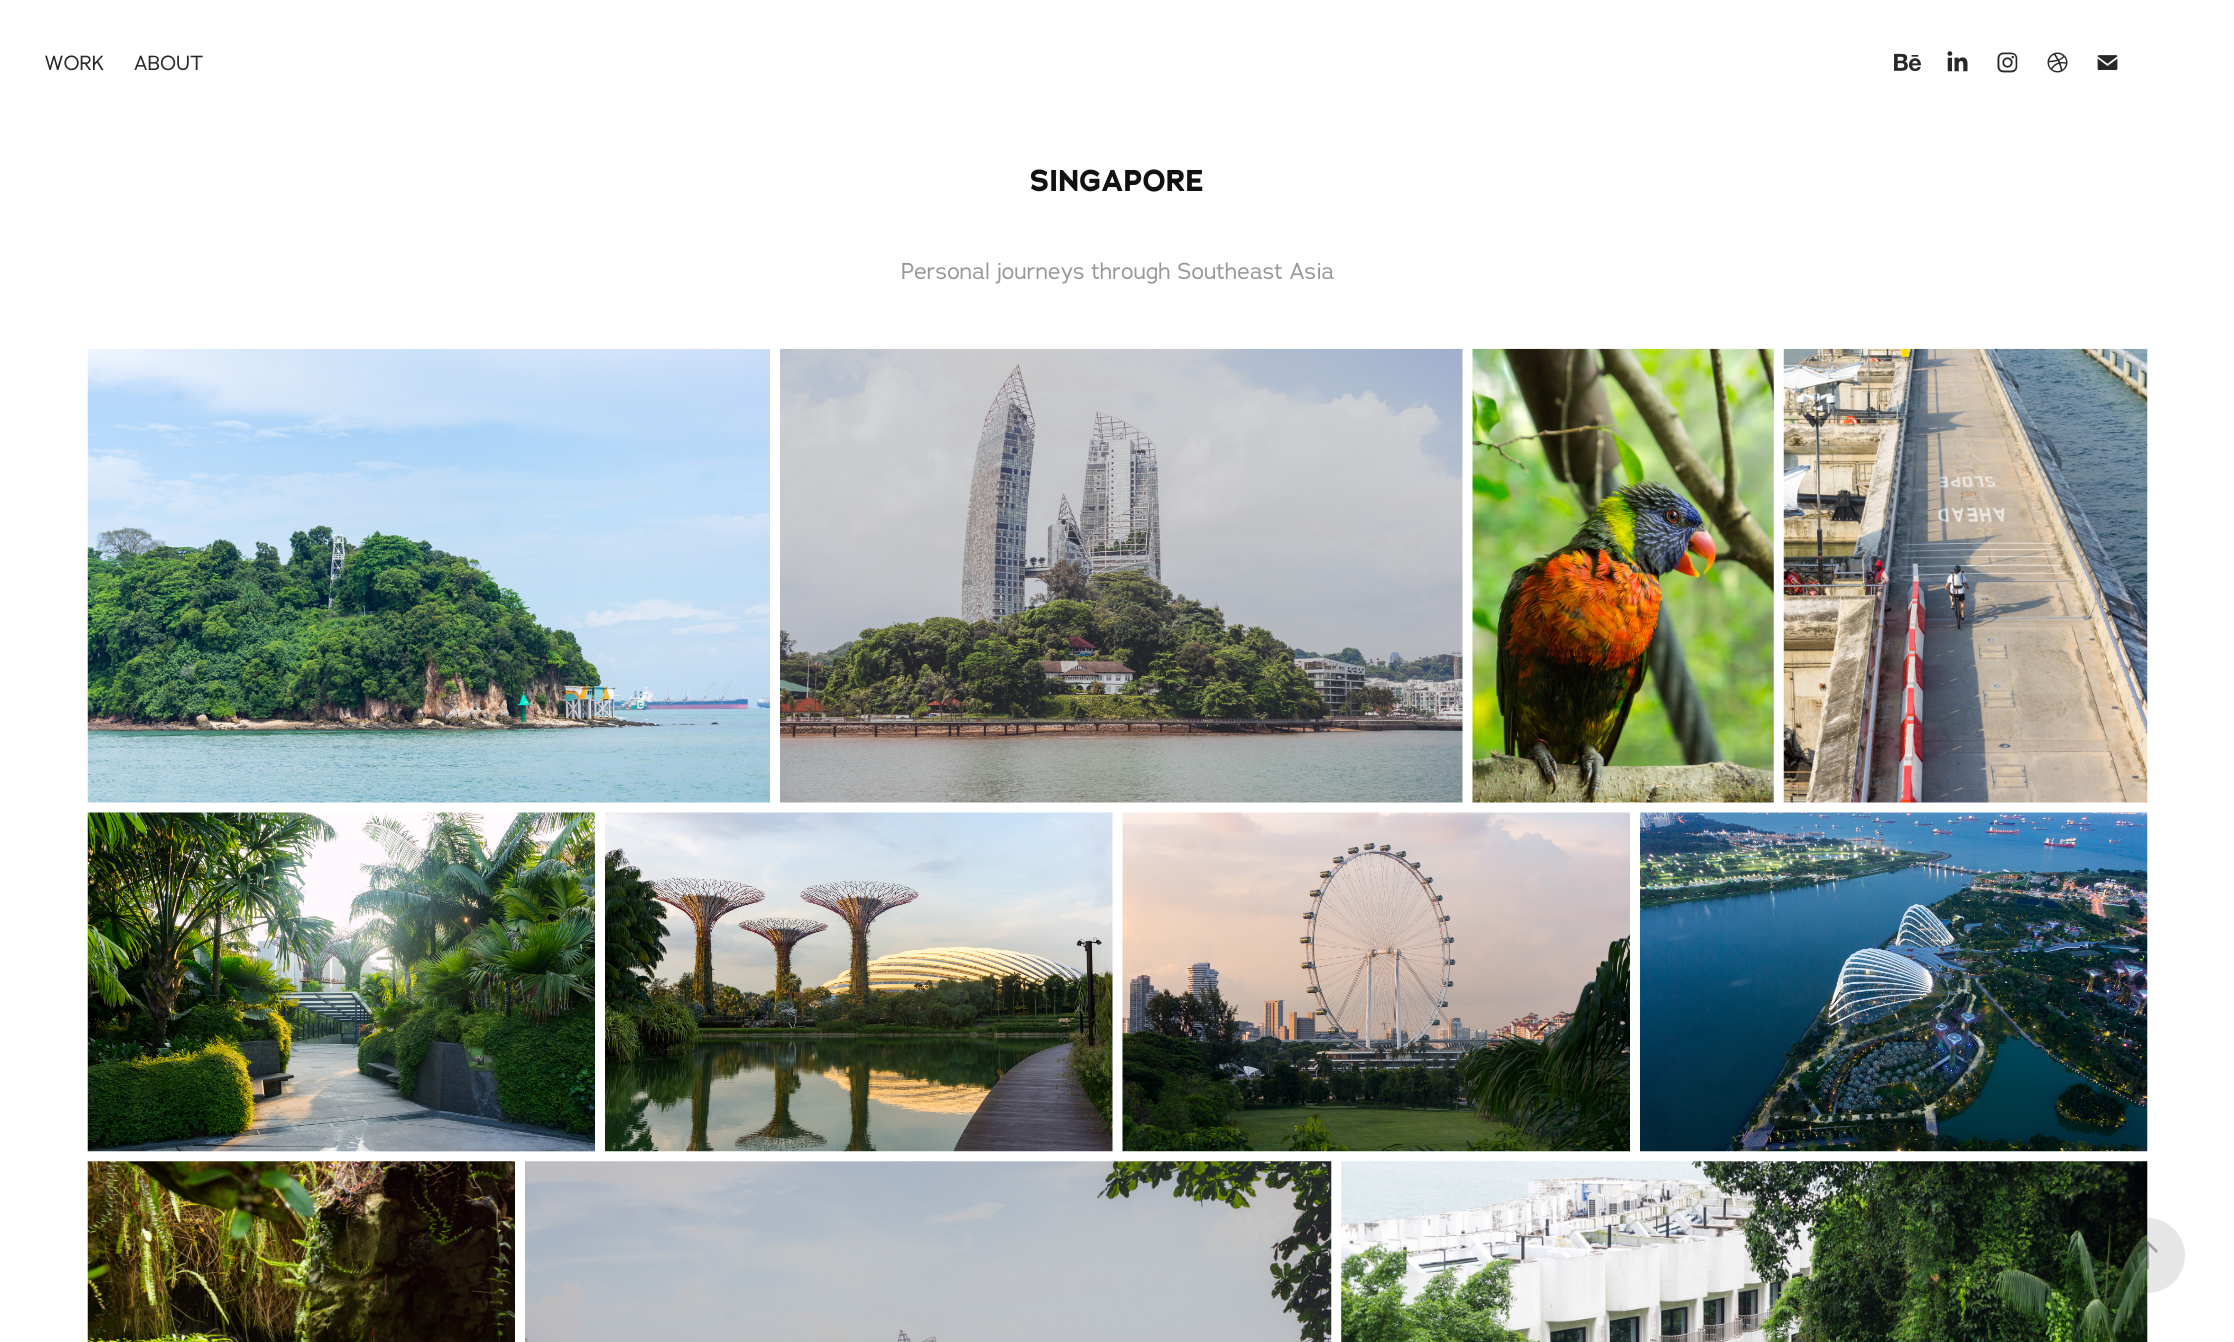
#include <cairo.h>
#include <math.h>
#include <stddef.h>

static cairo_t *ctx;

static void use_color(int r, int g, int b) {
    cairo_set_source_rgb(ctx, r / 255.0, g / 255.0, b / 255.0);
}

static void picture(const char *path, double x, double y, double w, double h) {
    cairo_surface_t *image = cairo_image_surface_create_from_png(path);
    cairo_save(ctx);
    cairo_set_source_surface(ctx, image, x, y);
    cairo_rectangle(ctx, x, y, w, h);
    cairo_fill(ctx);
    cairo_restore(ctx);
    cairo_surface_destroy(image);
}

int main(void) {
    cairo_surface_t *surface = cairo_image_surface_create(CAIRO_FORMAT_RGB24, 2234, 1342);
    ctx = cairo_create(surface);
    cairo_font_options_t *options = cairo_font_options_create();
    cairo_font_options_set_hint_metrics(options, CAIRO_HINT_METRICS_OFF);
    cairo_font_options_set_hint_style(options, CAIRO_HINT_STYLE_NONE);
    cairo_set_font_options(ctx, options);
    cairo_set_miter_limit(ctx, 4);
    use_color(255, 255, 255);
    cairo_paint(ctx);
    cairo_select_font_face(ctx, "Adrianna", CAIRO_FONT_SLANT_NORMAL, CAIRO_FONT_WEIGHT_NORMAL);
    cairo_set_font_size(ctx, 20);
    use_color(40, 40, 40);
    cairo_move_to(ctx, 45, 70);
    cairo_show_text(ctx, "WORK");
    cairo_move_to(ctx, 134, 70);
    cairo_show_text(ctx, "ABOUT");
    picture("img1.png", 1894, 53, 27, 19);
    picture("img2.png", 1947, 51, 21, 21);
    picture("img3.png", 1997, 52, 21, 21);
    picture("img4.png", 2047, 52, 21, 21);
    picture("img5.png", 2097, 55, 21, 15);
    cairo_select_font_face(ctx, "Adrianna", CAIRO_FONT_SLANT_NORMAL, CAIRO_FONT_WEIGHT_BOLD);
    cairo_set_font_size(ctx, 30);
    use_color(17, 17, 17);
    cairo_move_to(ctx, 1030, 191);
    cairo_show_text(ctx, "SINGAPORE");
    cairo_select_font_face(ctx, "Adrianna", CAIRO_FONT_SLANT_NORMAL, CAIRO_FONT_WEIGHT_NORMAL);
    cairo_set_font_size(ctx, 22.5);
    use_color(153, 153, 153);
    cairo_move_to(ctx, 901, 279);
    cairo_show_text(ctx, "Personal journeys through Southeast Asia");
    picture("img6.png", 87, 349, 683, 454);
    picture("img7.png", 780, 348, 683, 455);
    picture("img8.png", 1472, 348, 302, 455);
    picture("img9.png", 1783, 348, 365, 455);
    picture("img10.png", 87, 812, 508, 340);
    picture("img11.png", 605, 812, 508, 340);
    picture("img12.png", 1122, 812, 508, 340);
    picture("img13.png", 1640, 812, 508, 340);
    picture("img14.png", 87, 1161, 428, 181);
    picture("img15.png", 525, 1161, 807, 181);
    picture("img16.png", 1341, 1161, 807, 181);
    cairo_set_source_rgba(ctx, 0, 0, 0, 0.1);
    cairo_arc(ctx, 2147.5, 1255.5, 37.5, 0, 2 * M_PI);
    cairo_fill(ctx);
    picture("img17.png", 2137, 1241, 21, 29);
    cairo_surface_write_to_png(surface, "result.png");
    cairo_font_options_destroy(options);
    cairo_destroy(ctx);
    cairo_surface_destroy(surface);
    return 0;
}
